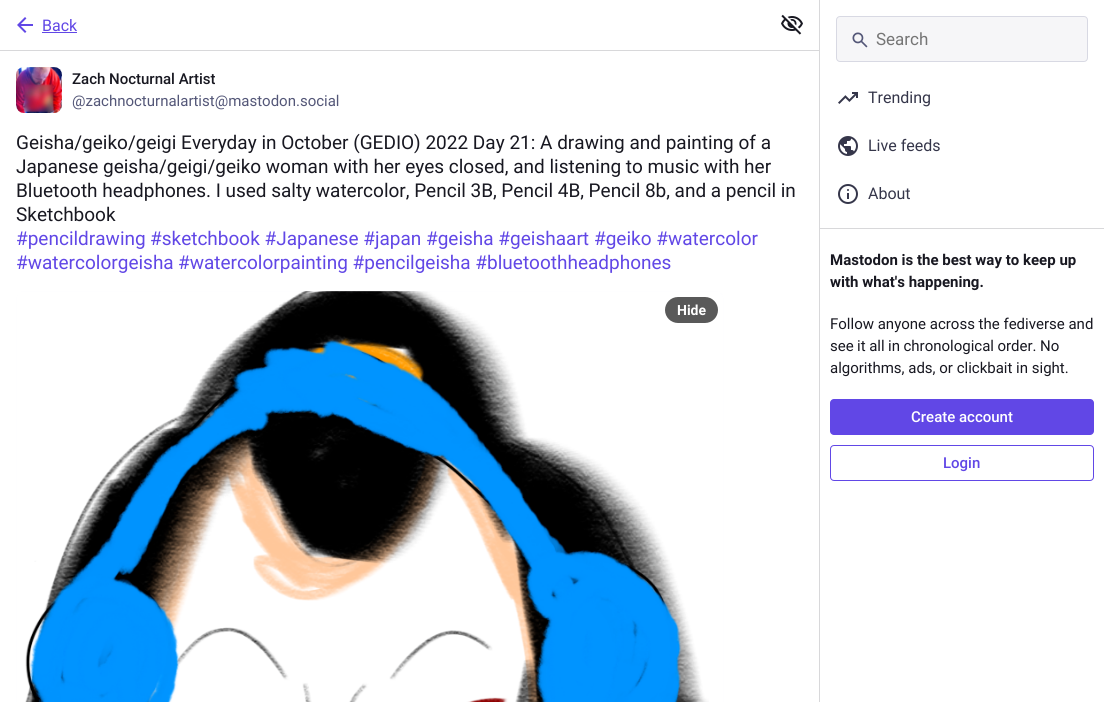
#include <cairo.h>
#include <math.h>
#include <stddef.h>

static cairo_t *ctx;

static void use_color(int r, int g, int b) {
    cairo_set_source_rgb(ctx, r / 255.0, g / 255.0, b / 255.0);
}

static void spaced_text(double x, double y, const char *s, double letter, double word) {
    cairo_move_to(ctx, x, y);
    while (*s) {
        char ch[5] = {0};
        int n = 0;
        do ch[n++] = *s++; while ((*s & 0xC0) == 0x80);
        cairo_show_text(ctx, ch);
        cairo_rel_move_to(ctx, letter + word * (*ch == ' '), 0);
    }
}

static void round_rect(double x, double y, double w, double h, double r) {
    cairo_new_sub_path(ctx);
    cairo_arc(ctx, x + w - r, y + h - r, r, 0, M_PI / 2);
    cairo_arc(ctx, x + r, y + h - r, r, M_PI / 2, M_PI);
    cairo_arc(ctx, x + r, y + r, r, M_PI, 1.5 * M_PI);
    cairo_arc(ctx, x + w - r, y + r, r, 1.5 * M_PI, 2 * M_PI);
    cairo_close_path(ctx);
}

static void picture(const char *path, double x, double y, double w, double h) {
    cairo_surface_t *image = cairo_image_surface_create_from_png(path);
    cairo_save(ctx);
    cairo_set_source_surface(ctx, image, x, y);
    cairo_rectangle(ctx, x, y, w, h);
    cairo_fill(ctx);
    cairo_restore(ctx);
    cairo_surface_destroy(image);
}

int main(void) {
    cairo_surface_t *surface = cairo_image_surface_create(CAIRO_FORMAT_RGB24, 1104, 702);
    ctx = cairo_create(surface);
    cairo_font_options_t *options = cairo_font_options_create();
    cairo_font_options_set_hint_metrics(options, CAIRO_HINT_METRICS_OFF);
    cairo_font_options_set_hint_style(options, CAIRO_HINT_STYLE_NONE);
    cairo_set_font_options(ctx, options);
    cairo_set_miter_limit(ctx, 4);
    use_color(255, 255, 255);
    cairo_paint(ctx);
    use_color(216, 216, 218);
    cairo_rectangle(ctx, 0, 50, 819, 1);
    cairo_fill(ctx);
    picture("img1.png", 17, 17, 16, 16);
    cairo_select_font_face(ctx, "Roboto", CAIRO_FONT_SLANT_NORMAL, CAIRO_FONT_WEIGHT_NORMAL);
    cairo_set_font_size(ctx, 16);
    use_color(97, 71, 230);
    cairo_move_to(ctx, 42, 31);
    cairo_show_text(ctx, "Back");
    cairo_rectangle(ctx, 42, 32, 35, 1);
    cairo_fill(ctx);
    picture("img2.png", 781, 14, 22, 21);
    use_color(236, 237, 241);
    round_rect(16, 67, 46, 46, 8);
    cairo_fill(ctx);
    picture("img3.png", 16, 67, 46, 46);
    cairo_select_font_face(ctx, "Roboto Medium", CAIRO_FONT_SLANT_NORMAL, CAIRO_FONT_WEIGHT_NORMAL);
    cairo_set_font_size(ctx, 15);
    use_color(24, 24, 33);
    cairo_move_to(ctx, 72, 84);
    cairo_show_text(ctx, "Zach Nocturnal Artist");
    cairo_select_font_face(ctx, "Roboto", CAIRO_FONT_SLANT_NORMAL, CAIRO_FONT_WEIGHT_NORMAL);
    use_color(84, 87, 120);
    cairo_move_to(ctx, 72, 106);
    cairo_show_text(ctx, "@zachnocturnalartist@mastodon.social");
    cairo_set_font_size(ctx, 19);
    use_color(24, 24, 33);
    cairo_move_to(ctx, 16, 149);
    cairo_show_text(ctx, "Geisha/geiko/geigi Everyday in October (GEDIO) 2022 Day 21: A drawing and painting of a");
    cairo_move_to(ctx, 16, 173);
    cairo_show_text(ctx, "Japanese geisha/geigi/geiko woman with her eyes closed, and listening to music with her");
    spaced_text(16, 197, "Bluetooth headphones. I used salty watercolor, Pencil 3B, Pencil 4B, Pencil 8b, and a pencil in", 0, -0.1);
    cairo_move_to(ctx, 16, 221);
    cairo_show_text(ctx, "Sketchbook");
    use_color(97, 71, 230);
    cairo_move_to(ctx, 16, 245);
    cairo_show_text(ctx, "#pencildrawing");
    cairo_move_to(ctx, 150, 245);
    cairo_show_text(ctx, "#sketchbook #Japanese #japan #geisha #geishaart");
    cairo_move_to(ctx, 594, 245);
    cairo_show_text(ctx, "#geiko #watercolor");
    cairo_move_to(ctx, 16, 269);
    cairo_show_text(ctx, "#watercolorgeisha");
    cairo_move_to(ctx, 178, 269);
    cairo_show_text(ctx, "#watercolorpainting #pencilgeisha #bluetoothheadphones");
    picture("img4.png", 25, 291, 684, 411);
    round_rect(16.5, 291.5, 707, 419, 7.5);
    cairo_set_source_rgba(ctx, 0.988, 0.973, 1, 0.15);
    cairo_set_line_width(ctx, 1);
    cairo_stroke(ctx);
    use_color(89, 89, 89);
    round_rect(665, 297, 53, 26, 13);
    cairo_fill(ctx);
    cairo_select_font_face(ctx, "Roboto", CAIRO_FONT_SLANT_NORMAL, CAIRO_FONT_WEIGHT_BOLD);
    cairo_set_font_size(ctx, 14);
    use_color(255, 255, 255);
    cairo_move_to(ctx, 677, 315);
    cairo_show_text(ctx, "Hide");
    use_color(216, 216, 218);
    cairo_rectangle(ctx, 819, 0, 1, 702);
    cairo_fill(ctx);
    use_color(246, 246, 248);
    round_rect(836.5, 16.5, 251, 45, 3.5);
    cairo_fill_preserve(ctx);
    use_color(216, 217, 227);
    cairo_stroke(ctx);
    picture("img5.png", 852, 32, 16, 16);
    cairo_select_font_face(ctx, "Roboto", CAIRO_FONT_SLANT_NORMAL, CAIRO_FONT_WEIGHT_NORMAL);
    cairo_set_font_size(ctx, 17);
    use_color(117, 117, 117);
    cairo_move_to(ctx, 876, 45);
    cairo_show_text(ctx, "Search");
    picture("img6.png", 838, 92, 20, 12);
    cairo_set_font_size(ctx, 16);
    use_color(53, 54, 74);
    cairo_move_to(ctx, 868, 103);
    cairo_show_text(ctx, "Trending");
    picture("img7.png", 838, 136, 20, 20);
    cairo_move_to(ctx, 868, 151);
    cairo_show_text(ctx, "Live feeds");
    picture("img8.png", 838, 184, 20, 20);
    cairo_move_to(ctx, 868, 199);
    cairo_show_text(ctx, "About");
    use_color(216, 216, 218);
    cairo_rectangle(ctx, 820, 228, 284, 1);
    cairo_fill(ctx);
    cairo_select_font_face(ctx, "Roboto", CAIRO_FONT_SLANT_NORMAL, CAIRO_FONT_WEIGHT_BOLD);
    cairo_set_font_size(ctx, 15);
    use_color(24, 24, 33);
    cairo_move_to(ctx, 830, 265);
    cairo_show_text(ctx, "Mastodon is the best way to keep up");
    cairo_move_to(ctx, 830, 287);
    cairo_show_text(ctx, "with what's happening.");
    cairo_select_font_face(ctx, "Roboto", CAIRO_FONT_SLANT_NORMAL, CAIRO_FONT_WEIGHT_NORMAL);
    cairo_move_to(ctx, 830, 329);
    cairo_show_text(ctx, "Follow anyone across the fediverse and");
    spaced_text(830, 351, "see it all in chronological order. No", 0, -0.25);
    cairo_move_to(ctx, 830, 373);
    cairo_show_text(ctx, "algorithms, ads, or clickbait in sight.");
    use_color(97, 71, 230);
    round_rect(830, 399, 264, 36, 4);
    cairo_fill(ctx);
    cairo_select_font_face(ctx, "Roboto Medium", CAIRO_FONT_SLANT_NORMAL, CAIRO_FONT_WEIGHT_NORMAL);
    use_color(255, 255, 255);
    cairo_move_to(ctx, 911, 422);
    cairo_show_text(ctx, "Create account");
    round_rect(830.5, 445.5, 263, 35, 3.5);
    use_color(97, 71, 230);
    cairo_stroke(ctx);
    cairo_move_to(ctx, 943, 468);
    cairo_show_text(ctx, "Login");
    cairo_surface_write_to_png(surface, "result.png");
    cairo_font_options_destroy(options);
    cairo_destroy(ctx);
    cairo_surface_destroy(surface);
    return 0;
}
